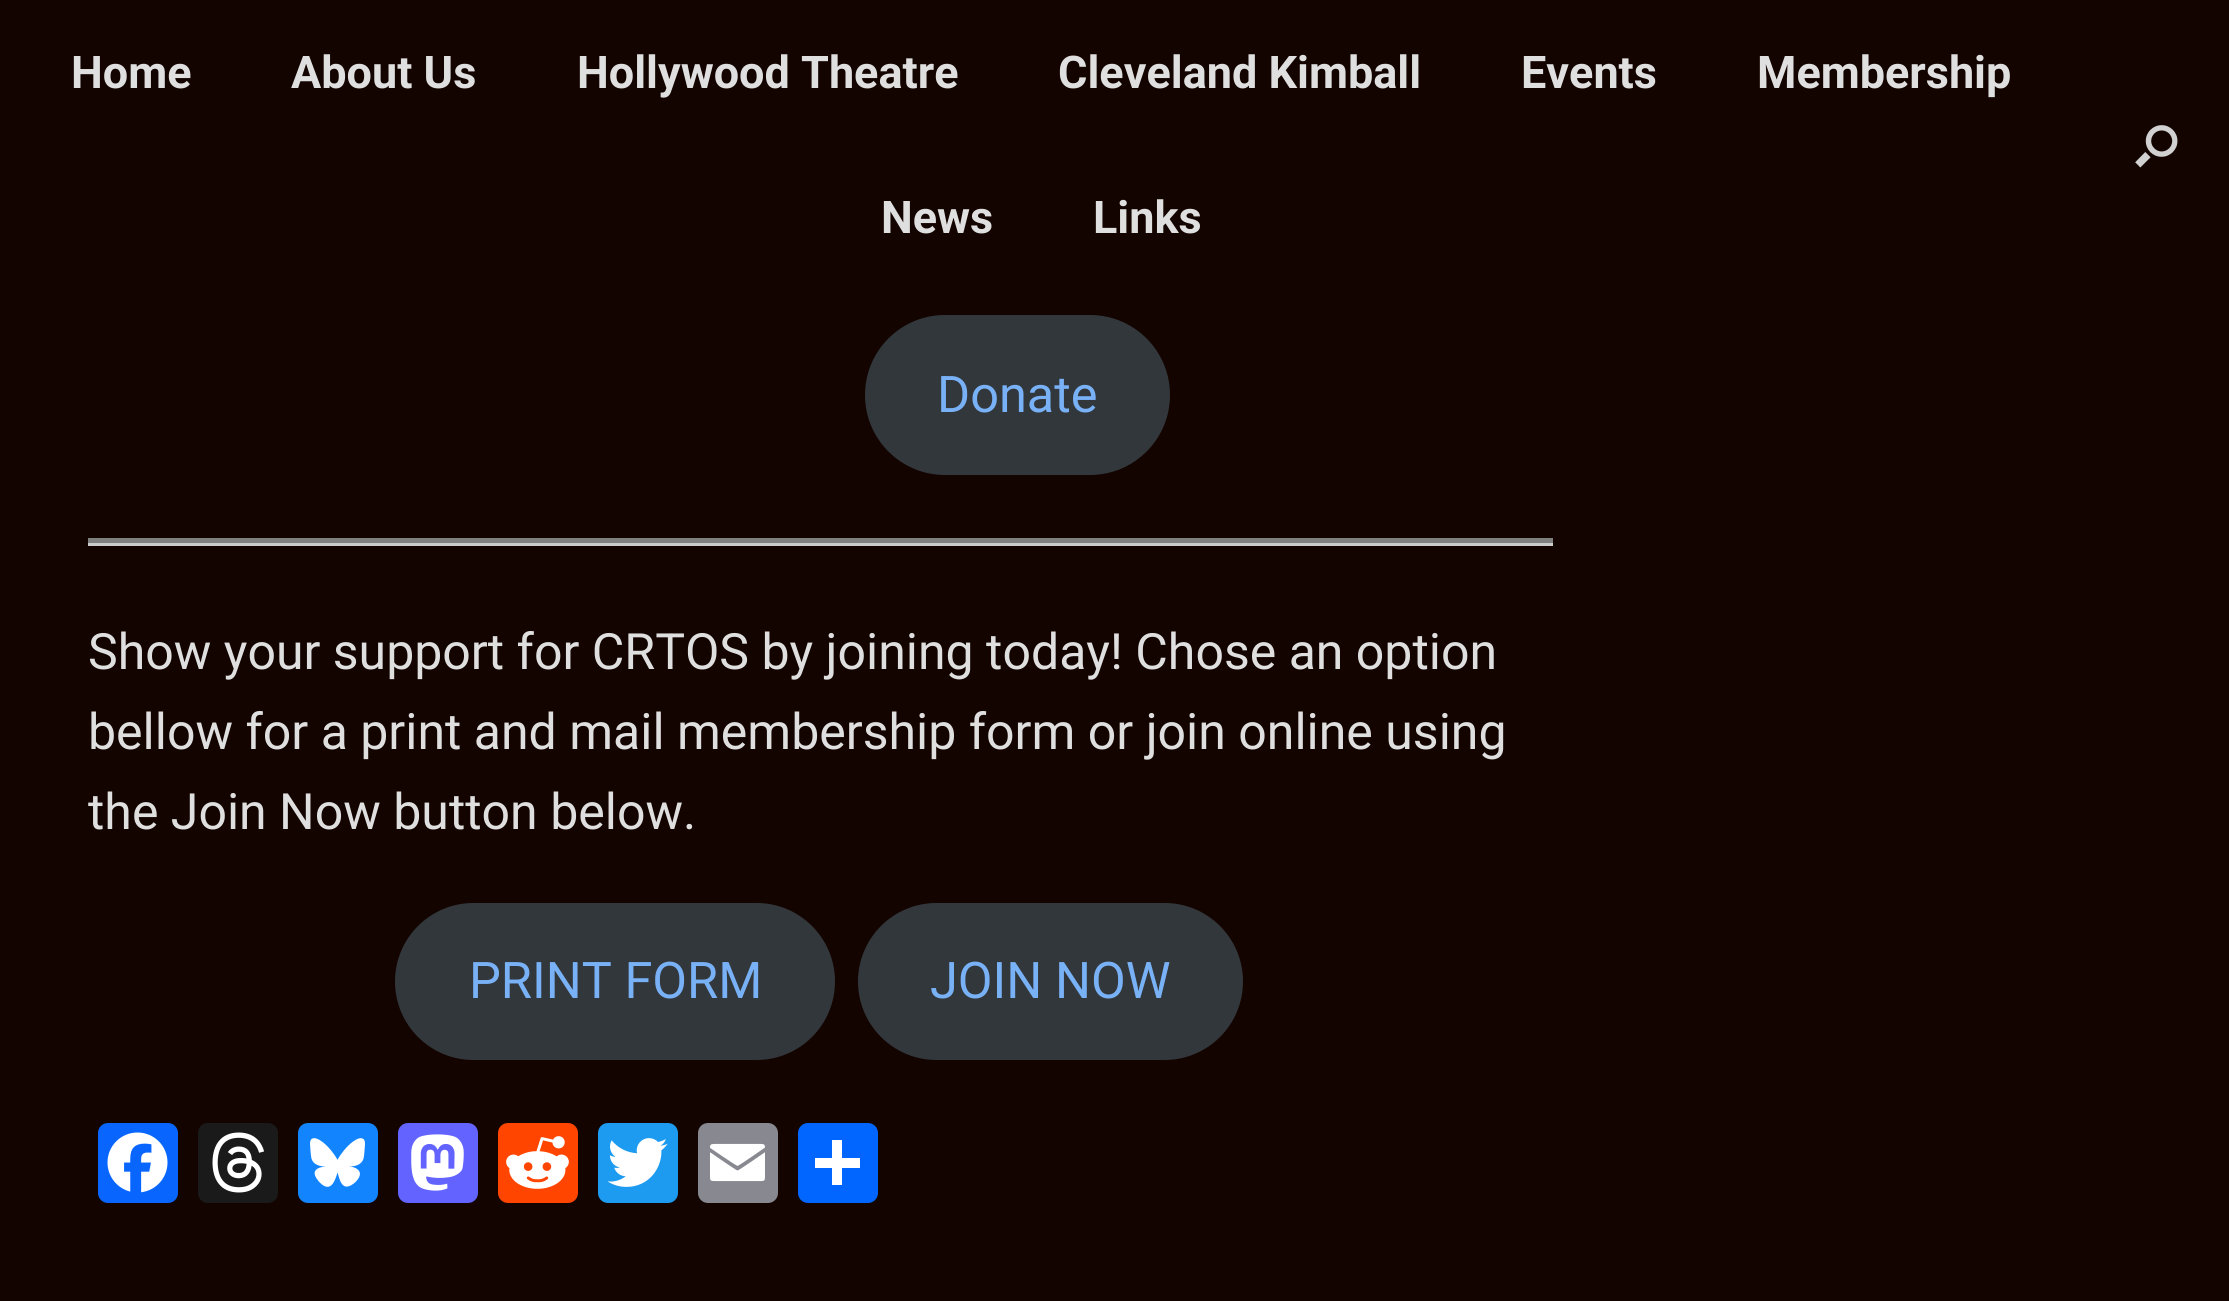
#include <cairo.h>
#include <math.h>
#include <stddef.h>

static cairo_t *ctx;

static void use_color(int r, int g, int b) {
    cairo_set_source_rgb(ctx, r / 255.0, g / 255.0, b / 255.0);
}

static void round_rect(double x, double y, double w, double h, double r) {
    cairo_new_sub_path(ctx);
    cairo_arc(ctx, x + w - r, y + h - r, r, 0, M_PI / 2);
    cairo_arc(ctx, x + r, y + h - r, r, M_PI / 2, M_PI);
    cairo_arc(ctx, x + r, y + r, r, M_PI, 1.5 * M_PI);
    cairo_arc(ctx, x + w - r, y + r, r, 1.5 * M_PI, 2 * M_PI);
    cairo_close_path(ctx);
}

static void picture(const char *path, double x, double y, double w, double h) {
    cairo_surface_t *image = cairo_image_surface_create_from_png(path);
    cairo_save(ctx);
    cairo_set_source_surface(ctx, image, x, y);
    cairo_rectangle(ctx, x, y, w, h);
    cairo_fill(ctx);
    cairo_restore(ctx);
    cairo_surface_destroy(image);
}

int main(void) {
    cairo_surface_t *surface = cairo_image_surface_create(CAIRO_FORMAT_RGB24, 2229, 1301);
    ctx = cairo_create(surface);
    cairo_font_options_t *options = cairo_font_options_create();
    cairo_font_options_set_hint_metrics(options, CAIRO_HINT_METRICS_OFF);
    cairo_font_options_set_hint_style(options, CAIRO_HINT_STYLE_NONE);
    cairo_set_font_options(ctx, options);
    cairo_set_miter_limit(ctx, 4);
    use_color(19, 4, 0);
    cairo_paint(ctx);
    cairo_select_font_face(ctx, "Roboto", CAIRO_FONT_SLANT_NORMAL, CAIRO_FONT_WEIGHT_BOLD);
    cairo_set_font_size(ctx, 45);
    use_color(223, 223, 223);
    cairo_move_to(ctx, 71, 88);
    cairo_show_text(ctx, "Home");
    cairo_move_to(ctx, 291, 88);
    cairo_show_text(ctx, "About Us");
    cairo_move_to(ctx, 577, 88);
    cairo_show_text(ctx, "Hollywood Theatre");
    cairo_move_to(ctx, 1058, 88);
    cairo_show_text(ctx, "Cleveland Kimball");
    cairo_move_to(ctx, 1521, 88);
    cairo_show_text(ctx, "Events");
    cairo_move_to(ctx, 1757, 88);
    cairo_show_text(ctx, "Membership");
    cairo_move_to(ctx, 881, 233);
    cairo_show_text(ctx, "News");
    cairo_move_to(ctx, 1093, 233);
    cairo_show_text(ctx, "Links");
    picture("img1.png", 2135, 125, 43, 43);
    use_color(50, 55, 60);
    round_rect(865, 315, 305, 160, 80);
    cairo_fill(ctx);
    cairo_select_font_face(ctx, "Roboto", CAIRO_FONT_SLANT_NORMAL, CAIRO_FONT_WEIGHT_NORMAL);
    cairo_set_font_size(ctx, 50.5);
    use_color(121, 177, 246);
    cairo_move_to(ctx, 937, 412);
    cairo_show_text(ctx, "Donate");
    use_color(204, 204, 204);
    cairo_rectangle(ctx, 88, 543, 1465, 3);
    cairo_fill(ctx);
    use_color(128, 128, 128);
    cairo_rectangle(ctx, 88, 538, 1465, 5);
    cairo_fill(ctx);
    cairo_set_font_size(ctx, 50);
    use_color(223, 223, 223);
    cairo_move_to(ctx, 88, 669);
    cairo_show_text(ctx, "Show your support for CRTOS by joining today! Chose an option");
    cairo_move_to(ctx, 88, 749);
    cairo_show_text(ctx, "bellow for a print and mail membership form or join online using");
    cairo_move_to(ctx, 88, 829);
    cairo_show_text(ctx, "the Join Now button below.");
    use_color(50, 55, 60);
    round_rect(395, 903, 440, 157, 78.5);
    cairo_fill(ctx);
    cairo_set_font_size(ctx, 50.5);
    use_color(121, 177, 246);
    cairo_move_to(ctx, 469, 998);
    cairo_show_text(ctx, "PRINT FORM");
    use_color(50, 55, 60);
    round_rect(858, 903, 385, 157, 78.5);
    cairo_fill(ctx);
    use_color(121, 177, 246);
    cairo_move_to(ctx, 930, 998);
    cairo_show_text(ctx, "JOIN NOW");
    use_color(8, 102, 255);
    round_rect(98, 1123, 80, 80, 10);
    cairo_fill(ctx);
    picture("img2.png", 107, 1132, 61, 61);
    use_color(26, 26, 26);
    round_rect(198, 1123, 80, 80, 10);
    cairo_fill(ctx);
    picture("img3.png", 212, 1132, 53, 61);
    use_color(18, 133, 254);
    round_rect(298, 1123, 80, 80, 10);
    cairo_fill(ctx);
    picture("img4.png", 310, 1138, 55, 49);
    use_color(99, 100, 255);
    round_rect(398, 1123, 80, 80, 10);
    cairo_fill(ctx);
    picture("img5.png", 411, 1134, 53, 57);
    use_color(255, 69, 0);
    round_rect(498, 1123, 80, 80, 10);
    cairo_fill(ctx);
    picture("img6.png", 506, 1136, 63, 53);
    use_color(29, 155, 240);
    round_rect(598, 1123, 80, 80, 10);
    cairo_fill(ctx);
    picture("img7.png", 607, 1138, 61, 49);
    use_color(136, 137, 144);
    round_rect(698, 1123, 80, 80, 10);
    cairo_fill(ctx);
    picture("img8.png", 710, 1143, 55, 39);
    use_color(1, 102, 255);
    round_rect(798, 1123, 80, 80, 10);
    cairo_fill(ctx);
    use_color(255, 255, 255);
    cairo_rectangle(ctx, 832, 1140, 10, 45);
    cairo_fill(ctx);
    cairo_rectangle(ctx, 815, 1158, 45, 10);
    cairo_fill(ctx);
    cairo_surface_write_to_png(surface, "result.png");
    cairo_font_options_destroy(options);
    cairo_destroy(ctx);
    cairo_surface_destroy(surface);
    return 0;
}
